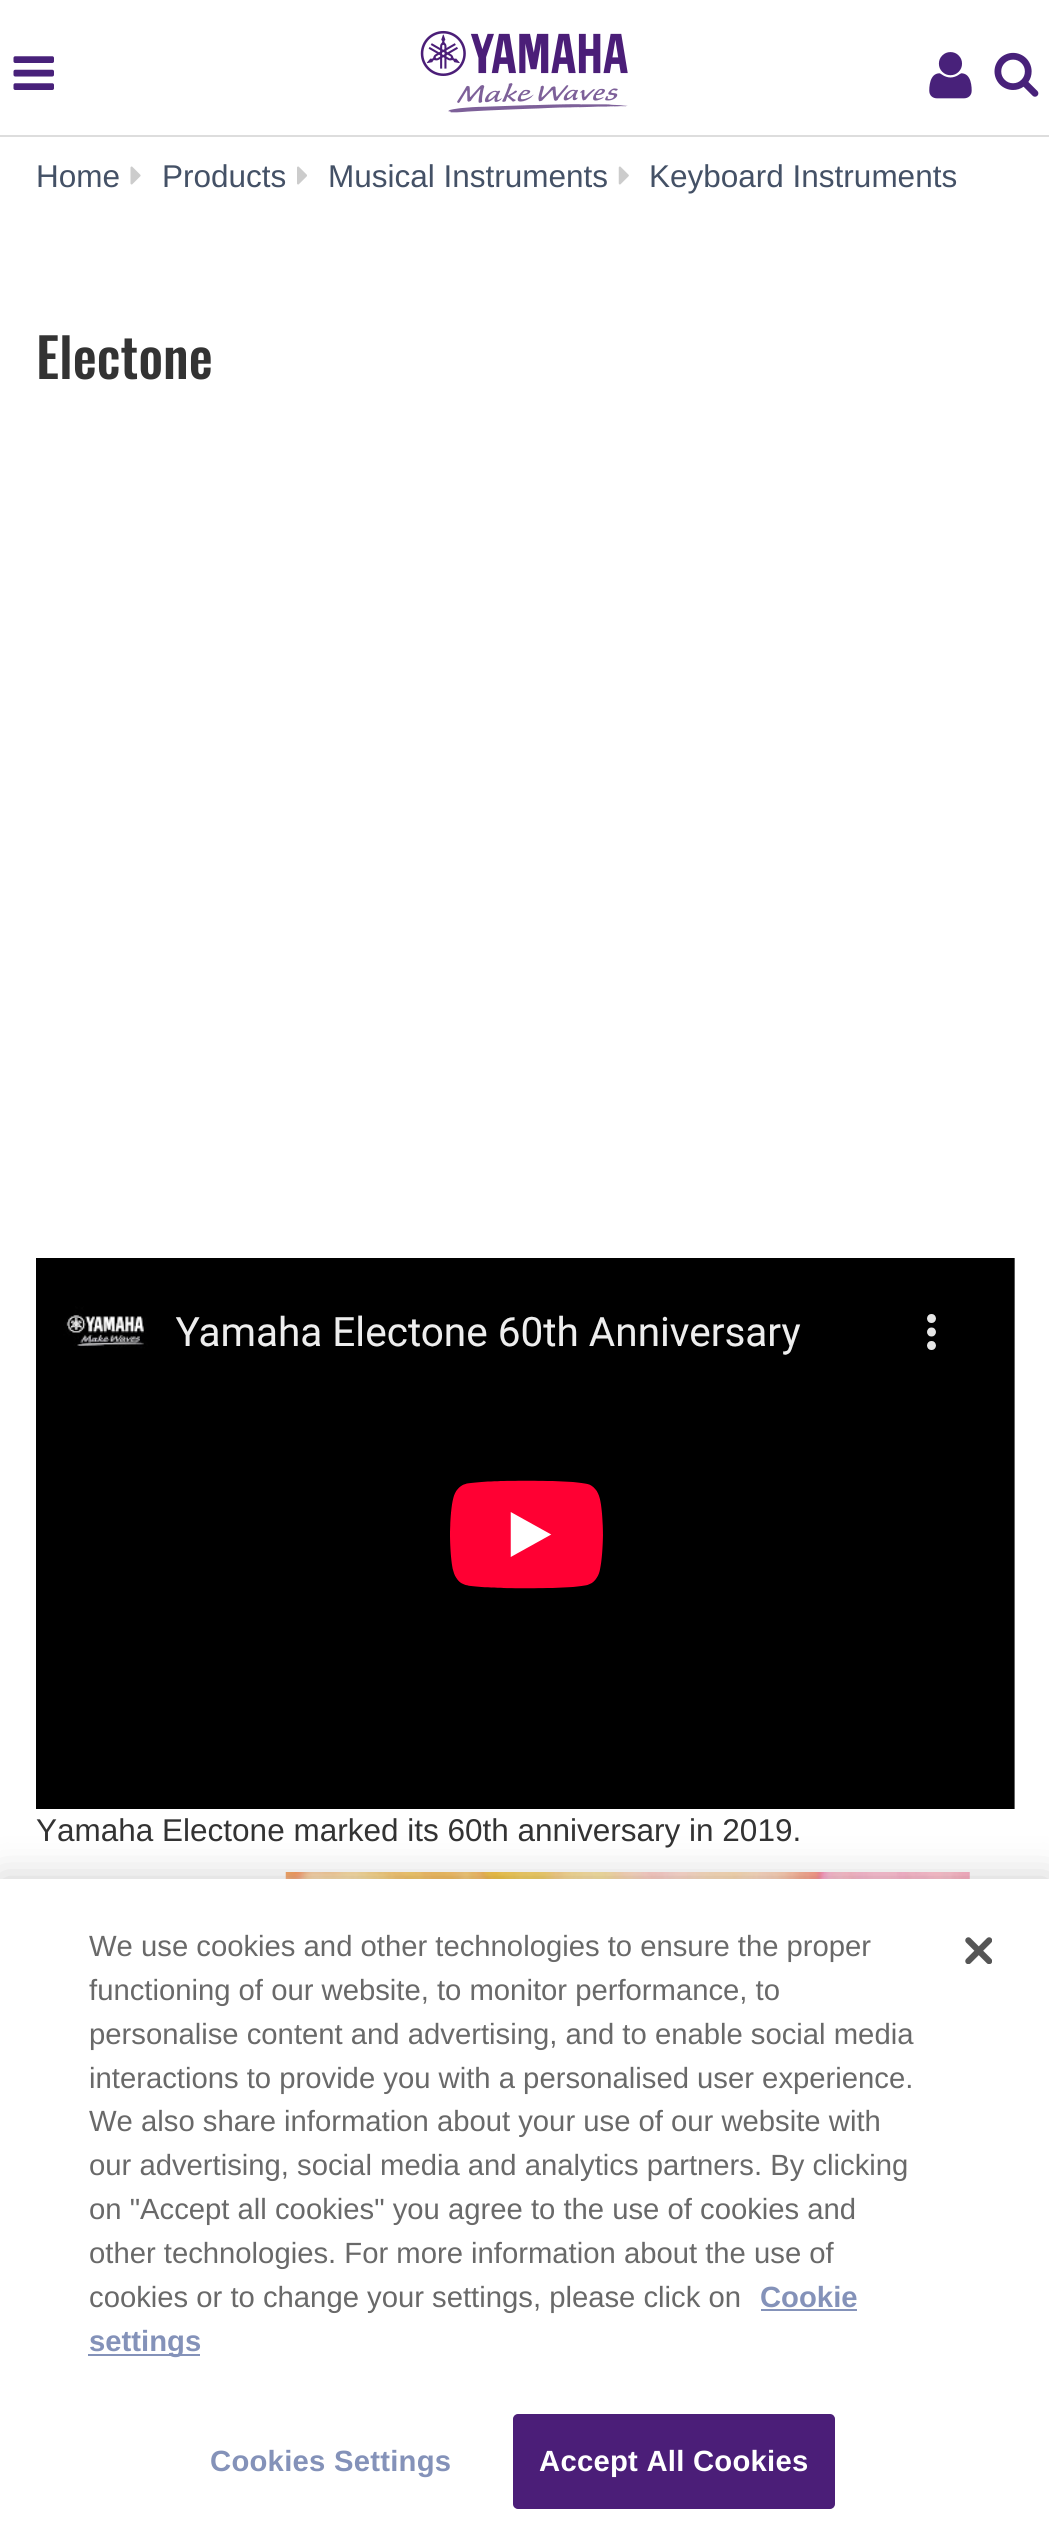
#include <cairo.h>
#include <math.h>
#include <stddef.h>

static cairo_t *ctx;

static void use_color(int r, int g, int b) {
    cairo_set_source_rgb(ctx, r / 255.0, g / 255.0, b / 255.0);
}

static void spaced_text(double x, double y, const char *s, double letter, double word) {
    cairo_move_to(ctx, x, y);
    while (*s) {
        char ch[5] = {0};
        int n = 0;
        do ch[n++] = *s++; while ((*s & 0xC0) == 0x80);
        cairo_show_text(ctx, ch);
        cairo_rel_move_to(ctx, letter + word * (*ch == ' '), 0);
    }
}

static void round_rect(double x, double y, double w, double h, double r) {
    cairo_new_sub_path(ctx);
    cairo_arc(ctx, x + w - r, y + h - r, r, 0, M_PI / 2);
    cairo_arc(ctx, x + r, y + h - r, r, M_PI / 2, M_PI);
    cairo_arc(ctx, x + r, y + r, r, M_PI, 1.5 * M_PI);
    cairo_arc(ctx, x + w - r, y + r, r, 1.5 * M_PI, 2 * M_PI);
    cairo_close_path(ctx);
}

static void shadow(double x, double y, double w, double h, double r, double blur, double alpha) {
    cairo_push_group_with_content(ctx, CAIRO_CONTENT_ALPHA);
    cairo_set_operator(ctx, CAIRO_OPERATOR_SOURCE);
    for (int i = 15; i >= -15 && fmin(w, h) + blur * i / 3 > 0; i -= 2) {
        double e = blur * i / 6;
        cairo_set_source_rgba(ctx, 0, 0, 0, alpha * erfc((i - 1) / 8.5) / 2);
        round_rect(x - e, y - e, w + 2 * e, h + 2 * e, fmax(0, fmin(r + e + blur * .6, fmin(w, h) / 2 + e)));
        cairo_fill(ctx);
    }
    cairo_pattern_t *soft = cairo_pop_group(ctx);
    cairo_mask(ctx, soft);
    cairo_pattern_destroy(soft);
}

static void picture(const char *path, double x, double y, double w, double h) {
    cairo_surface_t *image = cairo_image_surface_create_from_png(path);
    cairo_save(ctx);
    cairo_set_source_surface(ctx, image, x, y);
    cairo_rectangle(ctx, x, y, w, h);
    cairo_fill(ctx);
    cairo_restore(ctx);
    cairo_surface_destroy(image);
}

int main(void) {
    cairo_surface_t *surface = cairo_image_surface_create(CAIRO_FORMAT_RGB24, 1049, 2530);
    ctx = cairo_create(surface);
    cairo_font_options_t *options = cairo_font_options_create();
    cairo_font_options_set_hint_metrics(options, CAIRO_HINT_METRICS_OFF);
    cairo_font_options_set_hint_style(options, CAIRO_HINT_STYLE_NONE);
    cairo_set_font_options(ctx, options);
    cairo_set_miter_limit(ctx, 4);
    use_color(255, 255, 255);
    cairo_paint(ctx);
    use_color(221, 221, 221);
    cairo_rectangle(ctx, 0, 135, 1049, 2);
    cairo_fill(ctx);
    picture("img1.png", 13, 56, 41, 34);
    picture("img2.png", 420, 30, 208, 83);
    picture("img3.png", 929, 52, 43, 47);
    picture("img4.png", 994, 52, 45, 45);
    cairo_select_font_face(ctx, "Liberation Sans", CAIRO_FONT_SLANT_NORMAL, CAIRO_FONT_WEIGHT_NORMAL);
    cairo_set_font_size(ctx, 31.5);
    use_color(68, 81, 102);
    cairo_move_to(ctx, 36, 187);
    cairo_show_text(ctx, "Home");
    picture("img5.png", 130, 166, 11, 19);
    cairo_move_to(ctx, 162, 187);
    cairo_show_text(ctx, "Products");
    picture("img6.png", 297, 166, 10, 19);
    cairo_move_to(ctx, 328, 187);
    cairo_show_text(ctx, "Musical Instruments");
    picture("img7.png", 618, 166, 11, 19);
    cairo_move_to(ctx, 649, 187);
    cairo_show_text(ctx, "Keyboard Instruments");
    cairo_select_font_face(ctx, "Oswald Medium", CAIRO_FONT_SLANT_NORMAL, CAIRO_FONT_WEIGHT_NORMAL);
    cairo_set_font_size(ctx, 54);
    use_color(51, 51, 51);
    cairo_move_to(ctx, 36, 379);
    cairo_show_text(ctx, "Electone");
    picture("img8.png", 36, 1258, 979, 551);
    cairo_select_font_face(ctx, "Liberation Sans", CAIRO_FONT_SLANT_NORMAL, CAIRO_FONT_WEIGHT_NORMAL);
    cairo_set_font_size(ctx, 31.5);
    cairo_move_to(ctx, 36, 1841);
    cairo_show_text(ctx, "Yamaha Electone marked its 60th anniversary in 2019.");
    picture("img9.png", 285, 1872, 685, 7);
    use_color(0, 0, 0);
    shadow(0, 1879, 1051, 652, 0, 20, 0.2);
    use_color(255, 255, 255);
    cairo_rectangle(ctx, 0, 1879, 1049, 651);
    cairo_fill(ctx);
    cairo_set_font_size(ctx, 29.25);
    use_color(105, 105, 105);
    cairo_move_to(ctx, 89, 1956);
    cairo_show_text(ctx, "We use cookies and other technologies to ensure the proper");
    cairo_move_to(ctx, 89, 2000);
    cairo_show_text(ctx, "functioning of our website, to monitor performance, to");
    cairo_move_to(ctx, 89, 2044);
    cairo_show_text(ctx, "personalise content and advertising, and to enable social media");
    cairo_move_to(ctx, 89, 2088);
    cairo_show_text(ctx, "interactions to provide you with a personalised user experience.");
    cairo_move_to(ctx, 89, 2131);
    cairo_show_text(ctx, "We also share information about your use of our website with");
    cairo_move_to(ctx, 89, 2175);
    cairo_show_text(ctx, "our advertising, social media and analytics partners. By clicking");
    cairo_move_to(ctx, 89, 2219);
    cairo_show_text(ctx, "on \"Accept all cookies\" you agree to the use of cookies and");
    cairo_move_to(ctx, 89, 2263);
    cairo_show_text(ctx, "other technologies. For more information about the use of");
    cairo_move_to(ctx, 89, 2307);
    cairo_show_text(ctx, "cookies or to change your settings, please click on");
    cairo_select_font_face(ctx, "Liberation Sans", CAIRO_FONT_SLANT_NORMAL, CAIRO_FONT_WEIGHT_BOLD);
    use_color(132, 146, 185);
    cairo_move_to(ctx, 760, 2307);
    cairo_show_text(ctx, "Cookie");
    cairo_rectangle(ctx, 761, 2309, 96, 2);
    cairo_fill(ctx);
    cairo_rectangle(ctx, 88, 2354, 112, 2);
    cairo_fill(ctx);
    cairo_move_to(ctx, 89, 2351);
    cairo_show_text(ctx, "settings");
    spaced_text(210, 2471, "Cookies Settings", 0.25, 0);
    use_color(75, 30, 120);
    round_rect(514, 2415, 320, 93, 4);
    cairo_fill_preserve(ctx);
    cairo_stroke(ctx);
    use_color(255, 255, 255);
    spaced_text(539, 2471, "Accept All Cookies", 0.25, 0);
    picture("img10.png", 965, 1937, 27, 27);
    cairo_surface_write_to_png(surface, "result.png");
    cairo_font_options_destroy(options);
    cairo_destroy(ctx);
    cairo_surface_destroy(surface);
    return 0;
}
